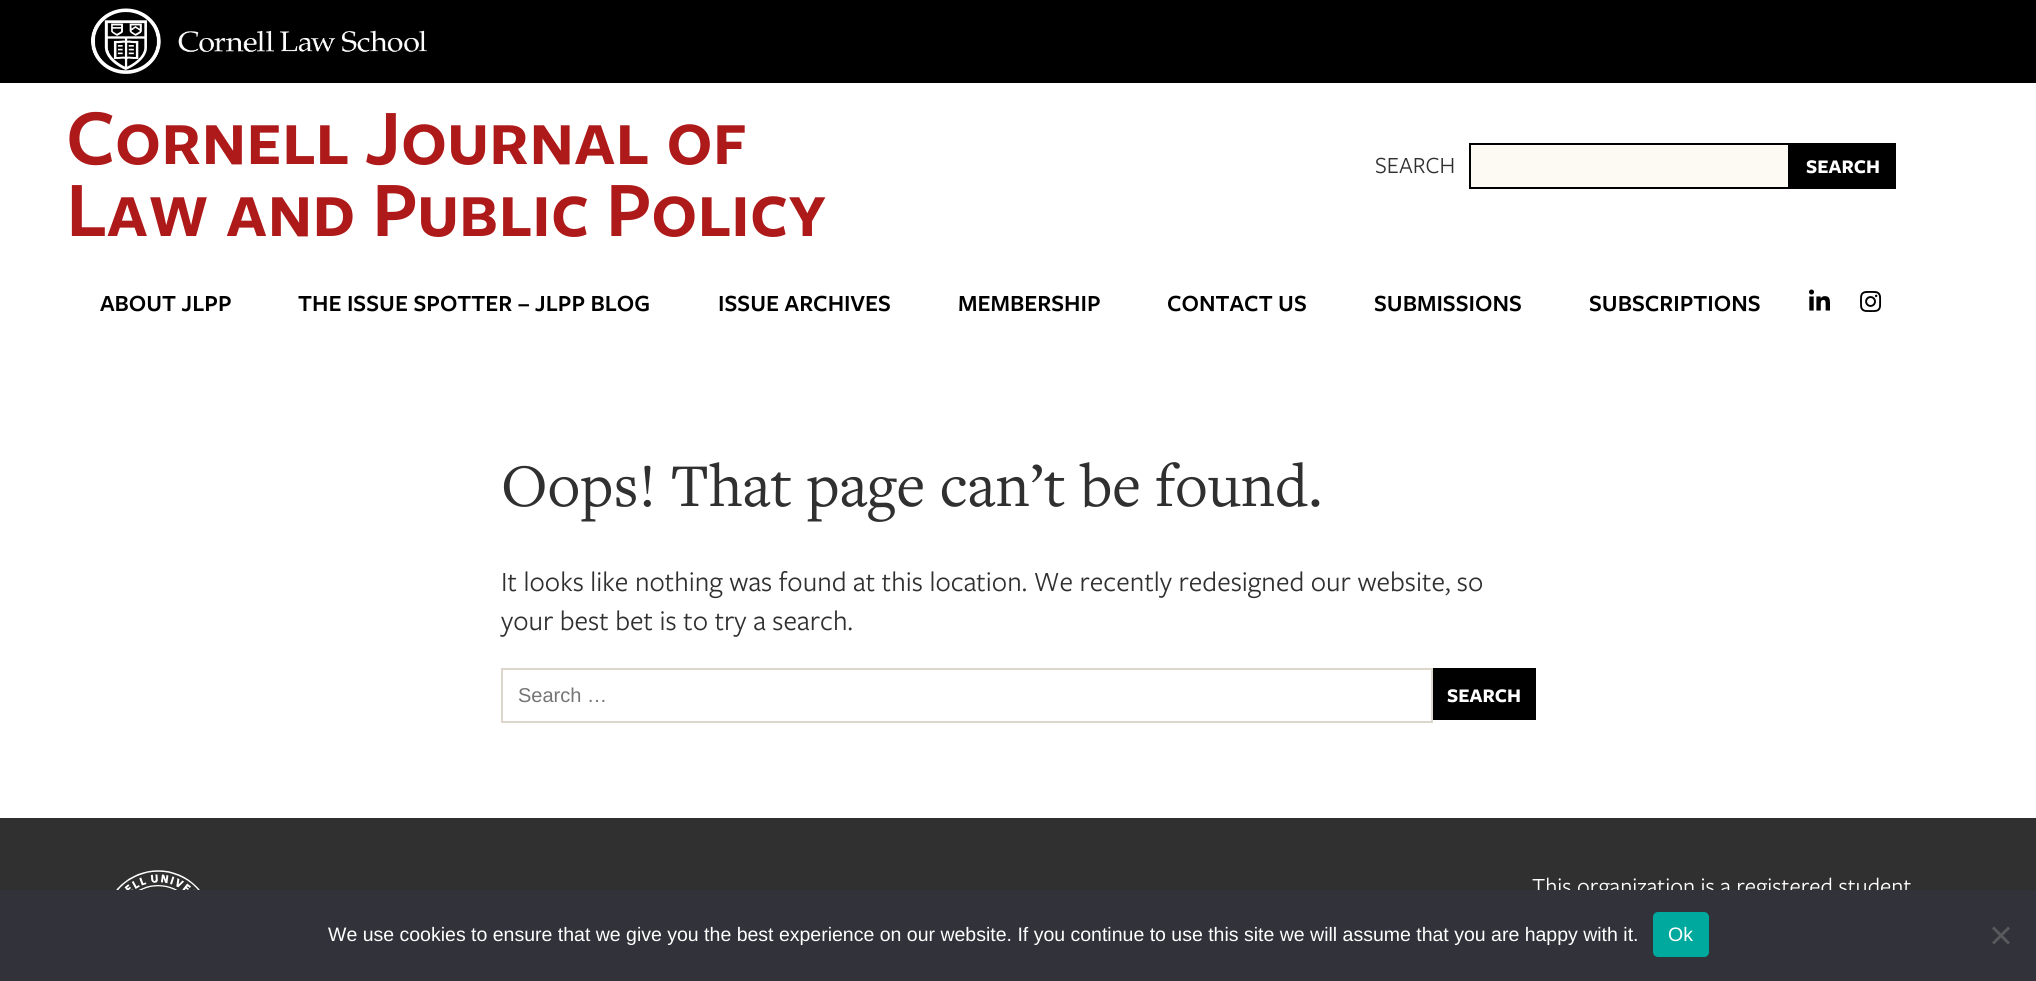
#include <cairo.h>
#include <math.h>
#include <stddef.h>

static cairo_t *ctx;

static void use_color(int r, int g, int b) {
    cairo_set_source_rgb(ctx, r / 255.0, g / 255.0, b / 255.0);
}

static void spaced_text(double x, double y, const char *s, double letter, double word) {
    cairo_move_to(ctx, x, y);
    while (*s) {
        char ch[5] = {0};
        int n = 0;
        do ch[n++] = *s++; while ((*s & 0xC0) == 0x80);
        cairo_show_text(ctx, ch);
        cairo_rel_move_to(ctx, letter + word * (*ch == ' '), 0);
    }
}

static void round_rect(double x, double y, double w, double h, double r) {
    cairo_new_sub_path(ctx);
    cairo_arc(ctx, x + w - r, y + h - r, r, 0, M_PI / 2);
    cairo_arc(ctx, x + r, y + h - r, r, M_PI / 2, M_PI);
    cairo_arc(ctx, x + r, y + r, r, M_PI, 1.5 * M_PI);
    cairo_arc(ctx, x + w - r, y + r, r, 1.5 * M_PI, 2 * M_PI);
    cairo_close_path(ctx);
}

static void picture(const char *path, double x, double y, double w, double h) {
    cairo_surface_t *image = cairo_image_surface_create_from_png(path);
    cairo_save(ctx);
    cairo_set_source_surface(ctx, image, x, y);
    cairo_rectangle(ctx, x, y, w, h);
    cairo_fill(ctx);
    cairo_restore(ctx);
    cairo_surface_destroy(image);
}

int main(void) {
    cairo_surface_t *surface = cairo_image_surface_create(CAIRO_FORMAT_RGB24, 2036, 981);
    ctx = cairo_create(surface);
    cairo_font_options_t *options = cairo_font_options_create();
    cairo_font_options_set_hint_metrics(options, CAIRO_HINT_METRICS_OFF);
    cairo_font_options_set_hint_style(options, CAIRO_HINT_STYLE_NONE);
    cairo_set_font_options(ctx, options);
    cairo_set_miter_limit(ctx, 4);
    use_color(255, 255, 255);
    cairo_paint(ctx);
    use_color(0, 0, 0);
    cairo_rectangle(ctx, 0, 0, 2036, 83);
    cairo_fill(ctx);
    picture("img1.png", 91, 8, 70, 66);
    picture("img2.png", 178, 30, 249, 23);
    cairo_select_font_face(ctx, "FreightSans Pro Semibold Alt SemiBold", CAIRO_FONT_SLANT_NORMAL, CAIRO_FONT_WEIGHT_NORMAL);
    cairo_set_font_size(ctx, 81.5);
    use_color(174, 25, 25);
    spaced_text(66, 164, "Cornell Journal of", -1.5, 0);
    spaced_text(66, 236, "Law and Public Policy", -1.5, 0);
    cairo_select_font_face(ctx, "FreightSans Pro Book", CAIRO_FONT_SLANT_NORMAL, CAIRO_FONT_WEIGHT_NORMAL);
    cairo_set_font_size(ctx, 24);
    use_color(48, 48, 48);
    cairo_move_to(ctx, 1375, 173);
    cairo_show_text(ctx, "SEARCH");
    use_color(253, 250, 243);
    cairo_rectangle(ctx, 1470, 144, 319, 44);
    cairo_fill_preserve(ctx);
    use_color(0, 0, 0);
    cairo_stroke(ctx);
    cairo_rectangle(ctx, 1790, 143, 106, 46);
    cairo_fill(ctx);
    cairo_select_font_face(ctx, "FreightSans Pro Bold", CAIRO_FONT_SLANT_NORMAL, CAIRO_FONT_WEIGHT_BOLD);
    cairo_set_font_size(ctx, 20);
    use_color(255, 255, 255);
    cairo_move_to(ctx, 1806, 173);
    cairo_show_text(ctx, "SEARCH");
    cairo_select_font_face(ctx, "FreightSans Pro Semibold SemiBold", CAIRO_FONT_SLANT_NORMAL, CAIRO_FONT_WEIGHT_NORMAL);
    cairo_set_font_size(ctx, 24);
    use_color(0, 0, 0);
    cairo_move_to(ctx, 100, 311);
    cairo_show_text(ctx, "ABOUT JLPP");
    cairo_move_to(ctx, 298, 311);
    cairo_show_text(ctx, "THE ISSUE SPOTTER – JLPP BLOG");
    cairo_move_to(ctx, 718, 311);
    cairo_show_text(ctx, "ISSUE ARCHIVES");
    cairo_move_to(ctx, 958, 311);
    cairo_show_text(ctx, "MEMBERSHIP");
    cairo_move_to(ctx, 1167, 311);
    cairo_show_text(ctx, "CONTACT US");
    cairo_move_to(ctx, 1374, 311);
    cairo_show_text(ctx, "SUBMISSIONS");
    cairo_move_to(ctx, 1589, 311);
    cairo_show_text(ctx, "SUBSCRIPTIONS");
    picture("img3.png", 1809, 289, 21, 22);
    picture("img4.png", 1860, 291, 22, 21);
    cairo_select_font_face(ctx, "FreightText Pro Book", CAIRO_FONT_SLANT_NORMAL, CAIRO_FONT_WEIGHT_NORMAL);
    cairo_set_font_size(ctx, 63);
    use_color(48, 48, 48);
    cairo_move_to(ctx, 501, 506);
    cairo_show_text(ctx, "Oops! That page can’t be found.");
    cairo_select_font_face(ctx, "FreightSans Pro Book", CAIRO_FONT_SLANT_NORMAL, CAIRO_FONT_WEIGHT_NORMAL);
    cairo_set_font_size(ctx, 28.8);
    cairo_move_to(ctx, 501, 591);
    cairo_show_text(ctx, "It looks like nothing was found at this location. We recently redesigned our website, so");
    cairo_move_to(ctx, 501, 630);
    cairo_show_text(ctx, "your best bet is to try a search.");
    cairo_rectangle(ctx, 502, 669, 930, 53);
    use_color(220, 215, 202);
    cairo_stroke(ctx);
    cairo_select_font_face(ctx, "Liberation Sans", CAIRO_FONT_SLANT_NORMAL, CAIRO_FONT_WEIGHT_NORMAL);
    cairo_set_font_size(ctx, 20);
    use_color(117, 117, 117);
    cairo_move_to(ctx, 518, 702);
    cairo_show_text(ctx, "Search …");
    use_color(0, 0, 0);
    cairo_rectangle(ctx, 1433, 668, 103, 52);
    cairo_fill(ctx);
    cairo_select_font_face(ctx, "FreightSans Pro Bold", CAIRO_FONT_SLANT_NORMAL, CAIRO_FONT_WEIGHT_BOLD);
    use_color(255, 255, 255);
    cairo_move_to(ctx, 1447, 702);
    cairo_show_text(ctx, "SEARCH");
    use_color(48, 48, 48);
    cairo_rectangle(ctx, 0, 818, 2036, 72);
    cairo_fill(ctx);
    picture("img5.png", 116, 870, 84, 20);
    cairo_select_font_face(ctx, "FreightSans Pro Book", CAIRO_FONT_SLANT_NORMAL, CAIRO_FONT_WEIGHT_NORMAL);
    cairo_set_font_size(ctx, 24);
    use_color(255, 255, 255);
    cairo_move_to(ctx, 1532, 894);
    cairo_show_text(ctx, "This organization is a registered student");
    use_color(50, 50, 58);
    cairo_rectangle(ctx, 0, 890, 2036, 91);
    cairo_fill(ctx);
    cairo_select_font_face(ctx, "Liberation Sans", CAIRO_FONT_SLANT_NORMAL, CAIRO_FONT_WEIGHT_NORMAL);
    cairo_set_font_size(ctx, 19.5);
    use_color(255, 255, 255);
    cairo_move_to(ctx, 328, 941);
    cairo_show_text(ctx, "We use cookies to ensure that we give you the best experience on our website. If you continue to use this site we will assume that you are happy with it.");
    use_color(0, 169, 157);
    round_rect(1653, 912, 56, 45, 5);
    cairo_fill(ctx);
    use_color(255, 255, 255);
    cairo_move_to(ctx, 1668, 941);
    cairo_show_text(ctx, "Ok");
    use_color(89, 89, 93);
    cairo_new_path(ctx);
    cairo_move_to(ctx, 2008, 926.5);
    cairo_line_to(ctx, 2010, 928.5);
    cairo_line_to(ctx, 1994, 944.5);
    cairo_line_to(ctx, 1992, 942.5);
    cairo_close_path(ctx);
    cairo_fill(ctx);
    cairo_new_path(ctx);
    cairo_move_to(ctx, 1992, 928.5);
    cairo_line_to(ctx, 1994, 926.5);
    cairo_line_to(ctx, 2010, 942.5);
    cairo_line_to(ctx, 2008, 944.5);
    cairo_close_path(ctx);
    cairo_fill(ctx);
    cairo_surface_write_to_png(surface, "result.png");
    cairo_font_options_destroy(options);
    cairo_destroy(ctx);
    cairo_surface_destroy(surface);
    return 0;
}
